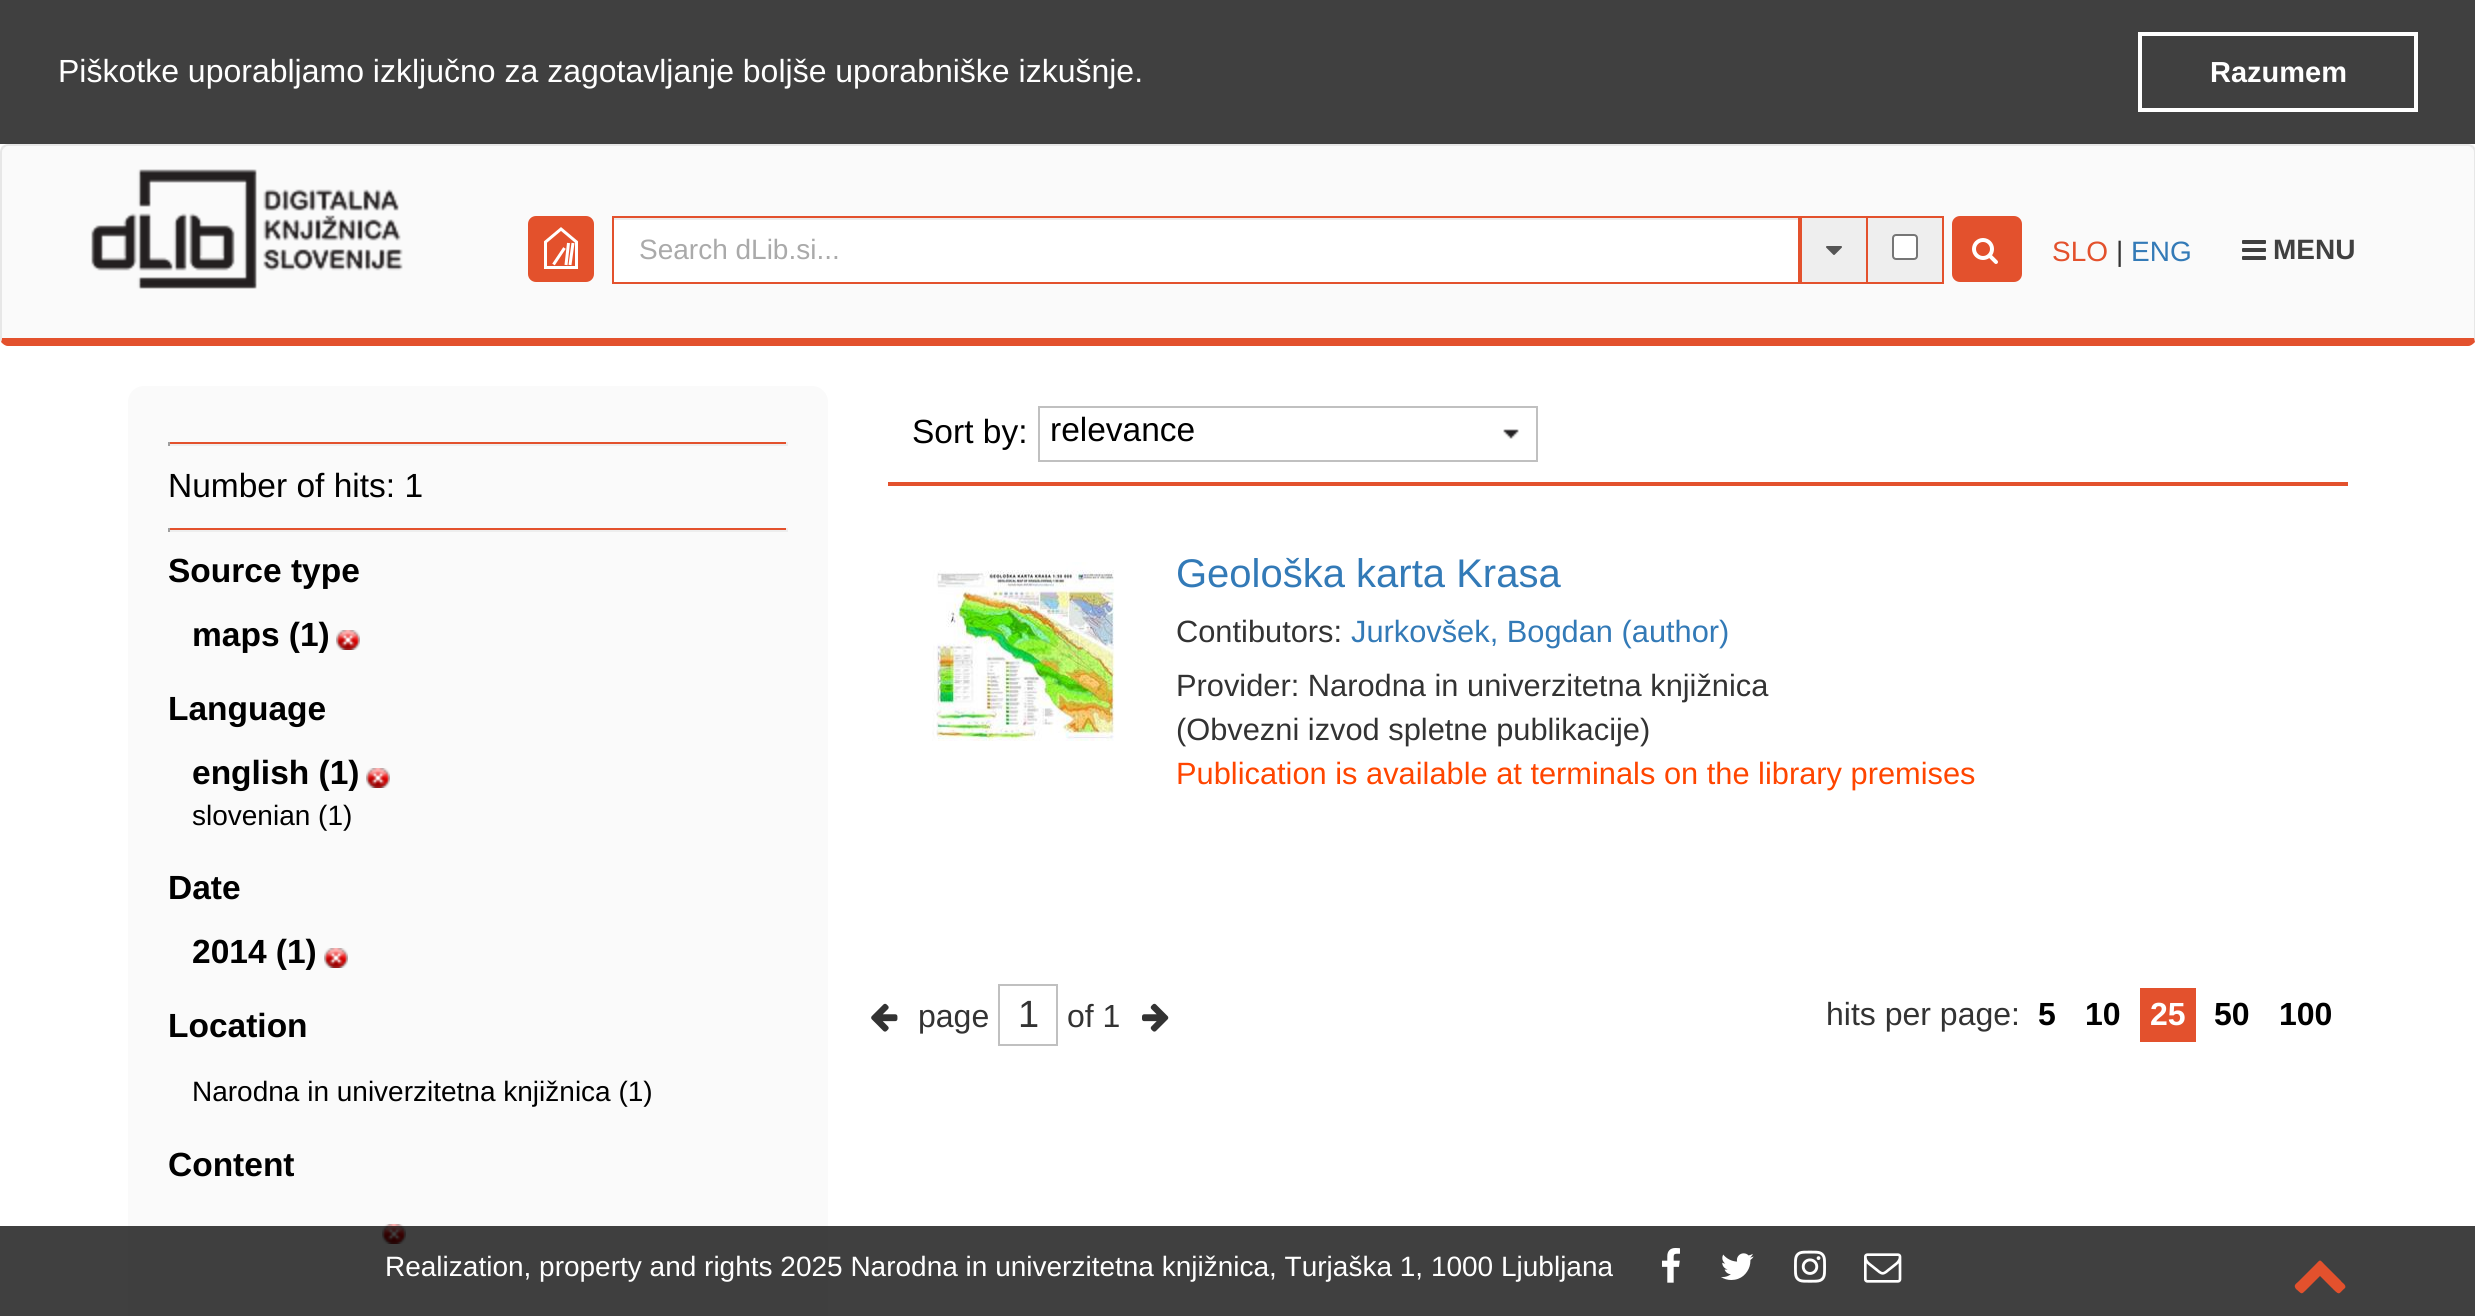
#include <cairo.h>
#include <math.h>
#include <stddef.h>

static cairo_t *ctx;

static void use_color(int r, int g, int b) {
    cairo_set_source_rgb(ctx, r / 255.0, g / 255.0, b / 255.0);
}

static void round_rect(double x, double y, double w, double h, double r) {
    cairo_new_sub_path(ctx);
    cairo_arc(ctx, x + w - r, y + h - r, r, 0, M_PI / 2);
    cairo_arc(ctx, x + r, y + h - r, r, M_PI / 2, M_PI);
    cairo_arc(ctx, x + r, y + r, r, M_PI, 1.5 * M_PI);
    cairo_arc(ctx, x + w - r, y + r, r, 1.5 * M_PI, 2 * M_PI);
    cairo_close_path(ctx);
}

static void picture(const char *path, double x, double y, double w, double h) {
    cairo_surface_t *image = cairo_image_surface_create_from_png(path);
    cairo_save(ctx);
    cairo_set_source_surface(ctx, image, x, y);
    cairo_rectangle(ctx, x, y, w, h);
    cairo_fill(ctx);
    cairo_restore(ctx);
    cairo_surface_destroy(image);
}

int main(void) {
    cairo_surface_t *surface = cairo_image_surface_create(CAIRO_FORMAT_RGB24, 2475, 1316);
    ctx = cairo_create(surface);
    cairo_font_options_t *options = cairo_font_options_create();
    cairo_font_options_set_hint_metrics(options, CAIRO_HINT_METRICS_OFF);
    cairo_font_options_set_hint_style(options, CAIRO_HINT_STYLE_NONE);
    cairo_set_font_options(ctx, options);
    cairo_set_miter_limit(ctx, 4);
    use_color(255, 255, 255);
    cairo_paint(ctx);
    use_color(64, 64, 64);
    cairo_rectangle(ctx, 0, 0, 2475, 144);
    cairo_fill(ctx);
    cairo_select_font_face(ctx, "Liberation Sans", CAIRO_FONT_SLANT_NORMAL, CAIRO_FONT_WEIGHT_NORMAL);
    cairo_set_font_size(ctx, 32);
    use_color(255, 255, 255);
    cairo_move_to(ctx, 58, 82);
    cairo_show_text(ctx, "Piškotke uporabljamo izključno za zagotavljanje boljše uporabniške izkušnje.");
    cairo_rectangle(ctx, 2140, 34, 276, 76);
    cairo_set_line_width(ctx, 4);
    cairo_stroke(ctx);
    cairo_select_font_face(ctx, "Liberation Sans", CAIRO_FONT_SLANT_NORMAL, CAIRO_FONT_WEIGHT_BOLD);
    cairo_set_font_size(ctx, 29);
    cairo_move_to(ctx, 2210, 82);
    cairo_show_text(ctx, "Razumem");
    use_color(250, 250, 250);
    cairo_new_path(ctx);
    cairo_move_to(ctx, 8, 146);
    cairo_line_to(ctx, 2468, 146);
    cairo_curve_to(ctx, 2471, 146, 2474, 149, 2474, 152);
    cairo_line_to(ctx, 2474, 338);
    cairo_line_to(ctx, 2, 338);
    cairo_line_to(ctx, 2, 152);
    cairo_curve_to(ctx, 2, 149, 5, 146, 8, 146);
    cairo_close_path(ctx);
    cairo_fill(ctx);
    use_color(231, 231, 231);
    cairo_new_path(ctx);
    cairo_move_to(ctx, 8, 144);
    cairo_curve_to(ctx, 6, 144, 4, 145, 2, 146);
    cairo_line_to(ctx, 4, 148);
    cairo_curve_to(ctx, 5, 147, 6, 146, 8, 146);
    cairo_line_to(ctx, 2468, 146);
    cairo_curve_to(ctx, 2470, 146, 2471, 147, 2472, 148);
    cairo_line_to(ctx, 2474, 146);
    cairo_curve_to(ctx, 2472, 145, 2470, 144, 2468, 144);
    cairo_close_path(ctx);
    cairo_fill(ctx);
    cairo_new_path(ctx);
    cairo_move_to(ctx, 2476, 338);
    cairo_line_to(ctx, 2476, 152);
    cairo_curve_to(ctx, 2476, 150, 2475, 148, 2474, 146);
    cairo_line_to(ctx, 2472, 148);
    cairo_curve_to(ctx, 2473, 149, 2474, 150, 2474, 152);
    cairo_line_to(ctx, 2474, 338);
    cairo_line_to(ctx, 2475, 342);
    cairo_close_path(ctx);
    cairo_fill(ctx);
    use_color(227, 81, 45);
    cairo_new_path(ctx);
    cairo_move_to(ctx, 8, 346);
    cairo_line_to(ctx, 2468, 346);
    cairo_curve_to(ctx, 2471, 346, 2473, 344, 2475, 342);
    cairo_line_to(ctx, 2474, 338);
    cairo_line_to(ctx, 2, 338);
    cairo_line_to(ctx, 1, 342);
    cairo_curve_to(ctx, 3, 344, 5, 346, 8, 346);
    cairo_close_path(ctx);
    cairo_fill(ctx);
    use_color(231, 231, 231);
    cairo_new_path(ctx);
    cairo_move_to(ctx, 0, 152);
    cairo_line_to(ctx, 0, 338);
    cairo_curve_to(ctx, 0, 339, 0, 341, 1, 342);
    cairo_line_to(ctx, 2, 338);
    cairo_line_to(ctx, 2, 152);
    cairo_curve_to(ctx, 2, 150, 3, 149, 4, 148);
    cairo_line_to(ctx, 2, 146);
    cairo_curve_to(ctx, 1, 148, 0, 150, 0, 152);
    cairo_close_path(ctx);
    cairo_fill(ctx);
    picture("img1.png", 91, 169, 312, 120);
    use_color(227, 81, 44);
    round_rect(528, 216, 66, 66, 8);
    cairo_fill(ctx);
    cairo_new_path(ctx);
    cairo_move_to(ctx, 576.5, 267.5);
    cairo_line_to(ctx, 545.5, 267.5);
    cairo_line_to(ctx, 545.5, 242);
    cairo_line_to(ctx, 561, 229);
    cairo_line_to(ctx, 576.5, 242);
    cairo_close_path(ctx);
    cairo_move_to(ctx, 553.5, 264.5);
    cairo_line_to(ctx, 564.5, 248);
    cairo_move_to(ctx, 566, 265);
    cairo_line_to(ctx, 568.5, 243);
    cairo_move_to(ctx, 570, 265);
    cairo_line_to(ctx, 573, 243);
    use_color(255, 255, 255);
    cairo_set_line_width(ctx, 3);
    cairo_stroke(ctx);
    cairo_rectangle(ctx, 614, 220, 1184, 62);
    cairo_fill(ctx);
    use_color(236, 236, 236);
    cairo_rectangle(ctx, 614, 218, 1184, 2);
    cairo_fill(ctx);
    cairo_rectangle(ctx, 613, 217, 1186, 66);
    use_color(227, 81, 45);
    cairo_set_line_width(ctx, 2);
    cairo_stroke(ctx);
    cairo_select_font_face(ctx, "Liberation Sans", CAIRO_FONT_SLANT_NORMAL, CAIRO_FONT_WEIGHT_NORMAL);
    cairo_set_font_size(ctx, 28);
    use_color(170, 170, 170);
    cairo_move_to(ctx, 639, 259);
    cairo_show_text(ctx, "Search dLib.si...");
    use_color(238, 238, 238);
    cairo_rectangle(ctx, 1801, 217, 66, 66);
    cairo_fill_preserve(ctx);
    use_color(227, 81, 45);
    cairo_stroke(ctx);
    picture("img2.png", 1826, 246, 16, 9);
    use_color(238, 238, 238);
    cairo_rectangle(ctx, 1868, 218, 74, 64);
    cairo_fill(ctx);
    use_color(227, 81, 45);
    cairo_rectangle(ctx, 1868, 216, 76, 2);
    cairo_fill(ctx);
    cairo_rectangle(ctx, 1942, 216, 2, 68);
    cairo_fill(ctx);
    cairo_rectangle(ctx, 1868, 282, 76, 2);
    cairo_fill(ctx);
    use_color(255, 255, 255);
    round_rect(1893, 235, 24, 24, 3);
    cairo_fill_preserve(ctx);
    use_color(118, 118, 118);
    cairo_stroke(ctx);
    use_color(227, 81, 45);
    round_rect(1952, 216, 70, 66, 8);
    cairo_fill(ctx);
    picture("img3.png", 1972, 238, 26, 26);
    cairo_move_to(ctx, 2052, 261);
    cairo_show_text(ctx, "SLO");
    use_color(51, 51, 51);
    cairo_move_to(ctx, 2116, 261);
    cairo_show_text(ctx, "|");
    use_color(51, 122, 183);
    cairo_move_to(ctx, 2131, 261);
    cairo_show_text(ctx, "ENG");
    picture("img4.png", 2242, 240, 24, 20);
    cairo_select_font_face(ctx, "Liberation Sans", CAIRO_FONT_SLANT_NORMAL, CAIRO_FONT_WEIGHT_BOLD);
    use_color(64, 64, 64);
    cairo_move_to(ctx, 2273, 259);
    cairo_show_text(ctx, "MENU");
    use_color(250, 250, 250);
    round_rect(128, 386, 700, 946, 16);
    cairo_fill(ctx);
    use_color(227, 81, 45);
    cairo_rectangle(ctx, 168, 442, 620, 2);
    cairo_fill(ctx);
    use_color(238, 238, 238);
    cairo_rectangle(ctx, 786, 442, 2, 4);
    cairo_fill(ctx);
    cairo_rectangle(ctx, 168, 444, 620, 2);
    cairo_fill(ctx);
    use_color(159, 159, 159);
    cairo_rectangle(ctx, 168, 442, 2, 4);
    cairo_fill(ctx);
    cairo_select_font_face(ctx, "Liberation Sans", CAIRO_FONT_SLANT_NORMAL, CAIRO_FONT_WEIGHT_NORMAL);
    cairo_set_font_size(ctx, 33.5);
    use_color(0, 0, 0);
    cairo_move_to(ctx, 168, 497);
    cairo_show_text(ctx, "Number of hits: 1");
    use_color(227, 81, 45);
    cairo_rectangle(ctx, 168, 528, 620, 2);
    cairo_fill(ctx);
    use_color(238, 238, 238);
    cairo_rectangle(ctx, 786, 528, 2, 4);
    cairo_fill(ctx);
    cairo_rectangle(ctx, 168, 530, 620, 2);
    cairo_fill(ctx);
    use_color(159, 159, 159);
    cairo_rectangle(ctx, 168, 528, 2, 4);
    cairo_fill(ctx);
    cairo_select_font_face(ctx, "Liberation Sans", CAIRO_FONT_SLANT_NORMAL, CAIRO_FONT_WEIGHT_BOLD);
    use_color(0, 0, 0);
    cairo_move_to(ctx, 168, 582);
    cairo_show_text(ctx, "Source type");
    cairo_move_to(ctx, 192, 646);
    cairo_show_text(ctx, "maps (1)");
    picture("img5.png", 336, 630, 24, 20);
    cairo_move_to(ctx, 168, 720);
    cairo_show_text(ctx, "Language");
    cairo_move_to(ctx, 192, 784);
    cairo_show_text(ctx, "english (1)");
    picture("img5.png", 366, 768, 24, 20);
    cairo_select_font_face(ctx, "Liberation Sans", CAIRO_FONT_SLANT_NORMAL, CAIRO_FONT_WEIGHT_NORMAL);
    cairo_set_font_size(ctx, 28);
    cairo_move_to(ctx, 192, 825);
    cairo_show_text(ctx, "slovenian (1)");
    cairo_select_font_face(ctx, "Liberation Sans", CAIRO_FONT_SLANT_NORMAL, CAIRO_FONT_WEIGHT_BOLD);
    cairo_set_font_size(ctx, 33.5);
    cairo_move_to(ctx, 168, 899);
    cairo_show_text(ctx, "Date");
    cairo_move_to(ctx, 192, 963);
    cairo_show_text(ctx, "2014 (1)");
    picture("img5.png", 324, 948, 24, 20);
    cairo_move_to(ctx, 168, 1037);
    cairo_show_text(ctx, "Location");
    cairo_select_font_face(ctx, "Liberation Sans", CAIRO_FONT_SLANT_NORMAL, CAIRO_FONT_WEIGHT_NORMAL);
    cairo_set_font_size(ctx, 28);
    cairo_move_to(ctx, 192, 1101);
    cairo_show_text(ctx, "Narodna in univerzitetna knjižnica (1)");
    cairo_select_font_face(ctx, "Liberation Sans", CAIRO_FONT_SLANT_NORMAL, CAIRO_FONT_WEIGHT_BOLD);
    cairo_set_font_size(ctx, 33.5);
    cairo_move_to(ctx, 168, 1176);
    cairo_show_text(ctx, "Content");
    picture("img5.png", 382, 1224, 24, 20);
    use_color(227, 81, 45);
    cairo_rectangle(ctx, 888, 482, 1460, 4);
    cairo_fill(ctx);
    cairo_select_font_face(ctx, "Liberation Sans", CAIRO_FONT_SLANT_NORMAL, CAIRO_FONT_WEIGHT_NORMAL);
    use_color(0, 0, 0);
    cairo_move_to(ctx, 912, 443);
    cairo_show_text(ctx, "Sort by:");
    cairo_rectangle(ctx, 1039, 407, 498, 54);
    use_color(192, 192, 192);
    cairo_stroke(ctx);
    use_color(0, 0, 0);
    cairo_move_to(ctx, 1050, 441);
    cairo_show_text(ctx, "relevance");
    picture("img6.png", 1503, 429, 16, 10);
    picture("img7.png", 932, 562, 183, 179);
    cairo_set_font_size(ctx, 40);
    use_color(51, 122, 183);
    cairo_move_to(ctx, 1176, 587);
    cairo_show_text(ctx, "Geološka karta Krasa");
    cairo_set_font_size(ctx, 30.8);
    use_color(51, 51, 51);
    cairo_move_to(ctx, 1176, 642);
    cairo_show_text(ctx, "Contibutors:");
    use_color(51, 122, 183);
    cairo_move_to(ctx, 1351, 642);
    cairo_show_text(ctx, "Jurkovšek, Bogdan (author)");
    use_color(51, 51, 51);
    cairo_move_to(ctx, 1176, 696);
    cairo_show_text(ctx, "Provider: Narodna in univerzitetna knjižnica");
    cairo_move_to(ctx, 1176, 740);
    cairo_show_text(ctx, "(Obvezni izvod spletne publikacije)");
    use_color(255, 69, 0);
    cairo_move_to(ctx, 1176, 784);
    cairo_show_text(ctx, "Publication is available at terminals on the library premises");
    picture("img8.png", 871, 1003, 27, 29);
    cairo_set_font_size(ctx, 32);
    use_color(51, 51, 51);
    cairo_move_to(ctx, 918, 1027);
    cairo_show_text(ctx, "page");
    cairo_rectangle(ctx, 999, 985, 58, 60);
    use_color(192, 192, 192);
    cairo_stroke(ctx);
    cairo_set_font_size(ctx, 38);
    use_color(51, 51, 51);
    cairo_move_to(ctx, 1018, 1027);
    cairo_show_text(ctx, "1");
    cairo_set_font_size(ctx, 32);
    cairo_move_to(ctx, 1067, 1027);
    cairo_show_text(ctx, "of 1");
    picture("img9.png", 1142, 1003, 27, 29);
    cairo_move_to(ctx, 1826, 1025);
    cairo_show_text(ctx, "hits per page:");
    cairo_select_font_face(ctx, "Liberation Sans", CAIRO_FONT_SLANT_NORMAL, CAIRO_FONT_WEIGHT_BOLD);
    use_color(0, 0, 0);
    cairo_move_to(ctx, 2038, 1025);
    cairo_show_text(ctx, "5");
    cairo_move_to(ctx, 2085, 1025);
    cairo_show_text(ctx, "10");
    use_color(227, 81, 45);
    cairo_rectangle(ctx, 2140, 988, 56, 54);
    cairo_fill(ctx);
    use_color(255, 255, 255);
    cairo_move_to(ctx, 2150, 1025);
    cairo_show_text(ctx, "25");
    use_color(0, 0, 0);
    cairo_move_to(ctx, 2214, 1025);
    cairo_show_text(ctx, "50");
    cairo_move_to(ctx, 2279, 1025);
    cairo_show_text(ctx, "100");
    cairo_set_source_rgba(ctx, 0, 0, 0, 0.75);
    cairo_rectangle(ctx, 0, 1226, 2475, 90);
    cairo_fill(ctx);
    cairo_select_font_face(ctx, "Liberation Sans", CAIRO_FONT_SLANT_NORMAL, CAIRO_FONT_WEIGHT_NORMAL);
    cairo_set_font_size(ctx, 28);
    use_color(255, 255, 255);
    cairo_move_to(ctx, 385, 1276);
    cairo_show_text(ctx, "Realization, property and rights 2025 Narodna in univerzitetna knjižnica, Turjaška 1, 1000 Ljubljana");
    picture("img10.png", 1662, 1248, 18, 35);
    picture("img11.png", 1721, 1253, 33, 27);
    picture("img12.png", 1794, 1250, 32, 33);
    picture("img13.png", 1864, 1253, 38, 30);
    use_color(227, 81, 45);
    cairo_new_path(ctx);
    cairo_move_to(ctx, 2345, 1288);
    cairo_curve_to(ctx, 2339, 1293, 2340, 1296, 2334, 1290);
    cairo_line_to(ctx, 2320, 1276);
    cairo_line_to(ctx, 2306, 1290);
    cairo_curve_to(ctx, 2301, 1295, 2302, 1294, 2296, 1289);
    cairo_curve_to(ctx, 2293, 1285, 2296, 1284, 2299, 1281);
    cairo_line_to(ctx, 2315, 1265);
    cairo_curve_to(ctx, 2321, 1259, 2319, 1259, 2325, 1265);
    cairo_line_to(ctx, 2341, 1281);
    cairo_curve_to(ctx, 2341, 1282, 2347, 1285, 2345, 1288);
    cairo_close_path(ctx);
    cairo_fill(ctx);
    cairo_surface_write_to_png(surface, "result.png");
    cairo_font_options_destroy(options);
    cairo_destroy(ctx);
    cairo_surface_destroy(surface);
    return 0;
}
